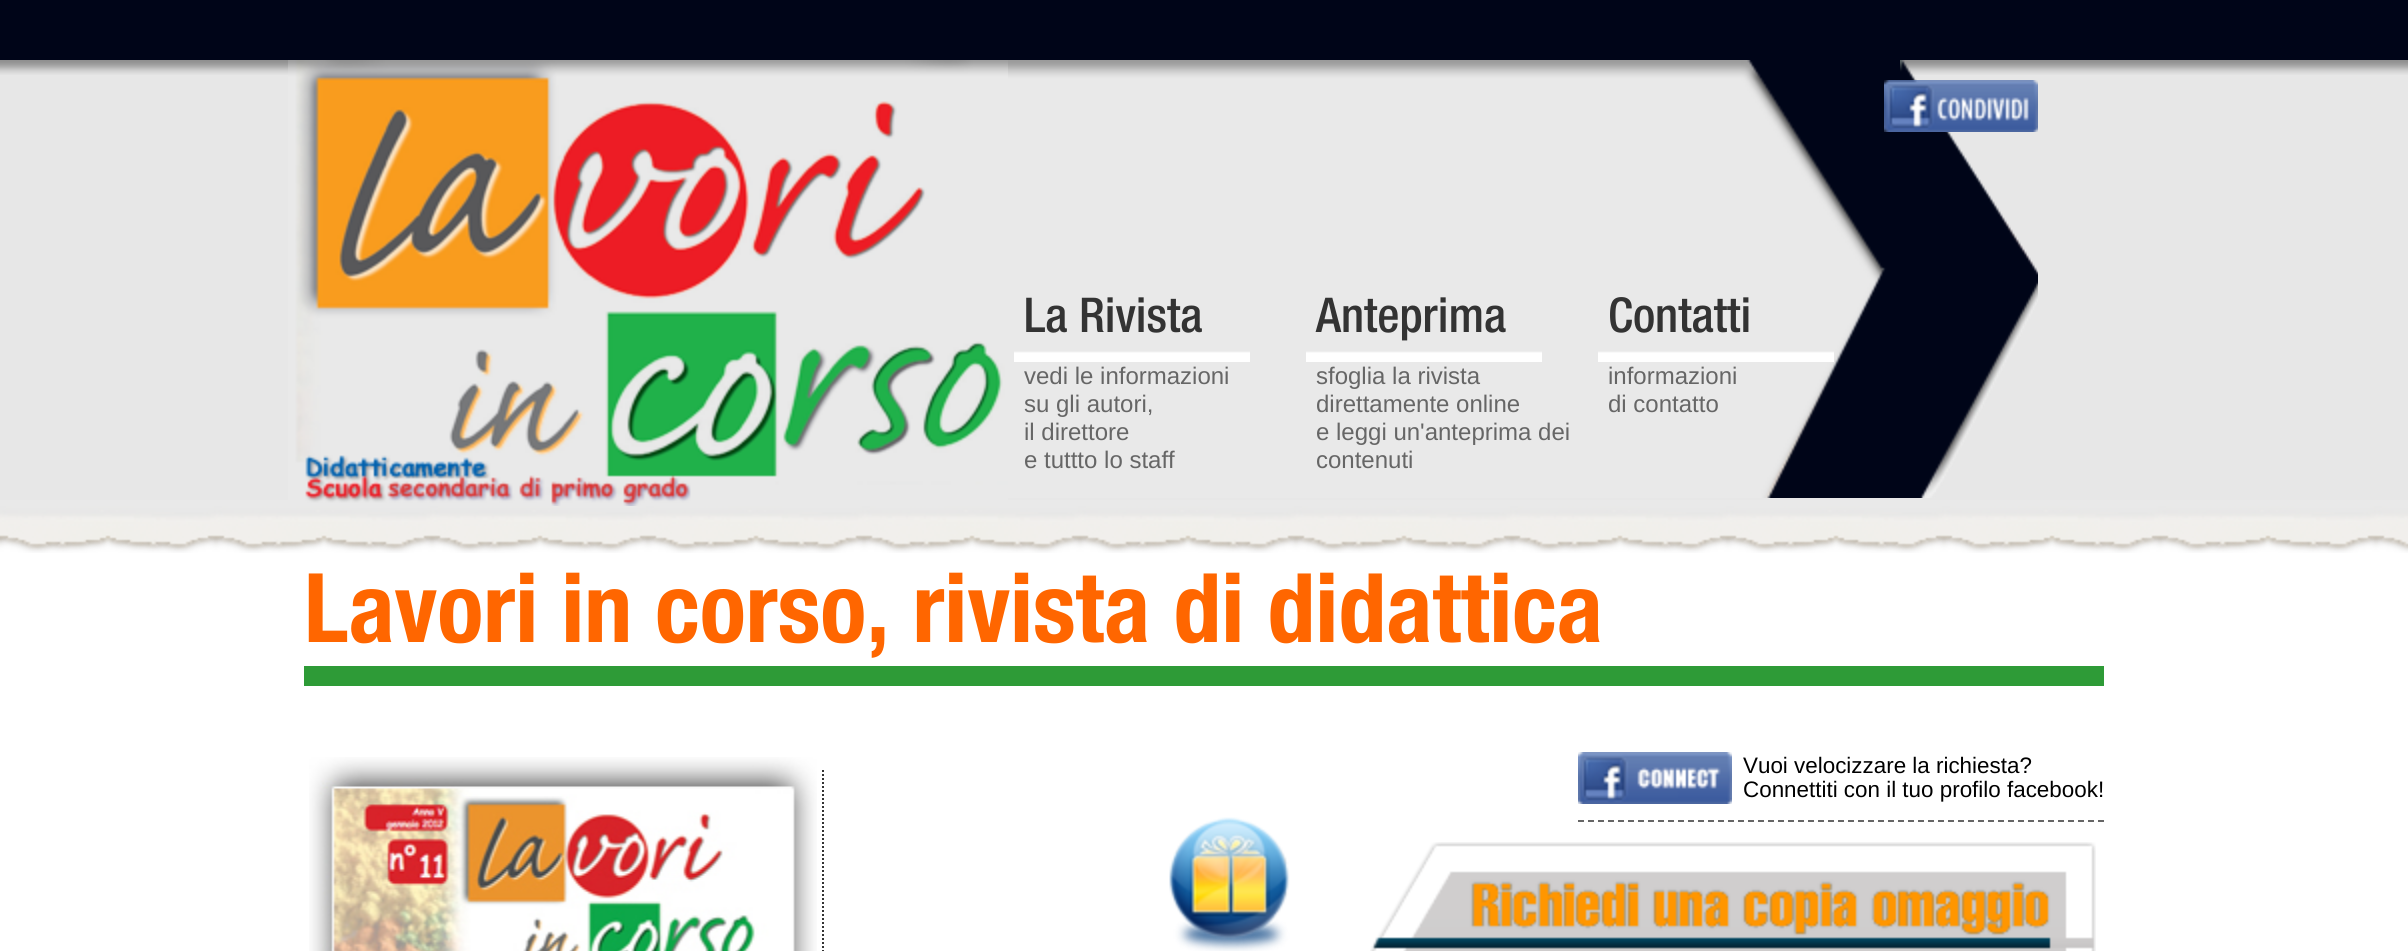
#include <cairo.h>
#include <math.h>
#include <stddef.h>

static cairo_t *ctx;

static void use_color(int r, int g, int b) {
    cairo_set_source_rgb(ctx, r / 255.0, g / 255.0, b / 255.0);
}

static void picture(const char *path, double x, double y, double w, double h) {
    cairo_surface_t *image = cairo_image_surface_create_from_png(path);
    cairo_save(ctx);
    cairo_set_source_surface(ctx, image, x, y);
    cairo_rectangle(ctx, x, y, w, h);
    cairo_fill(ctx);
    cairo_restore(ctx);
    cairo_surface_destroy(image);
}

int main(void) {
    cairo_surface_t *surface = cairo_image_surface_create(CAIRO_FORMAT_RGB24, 2408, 951);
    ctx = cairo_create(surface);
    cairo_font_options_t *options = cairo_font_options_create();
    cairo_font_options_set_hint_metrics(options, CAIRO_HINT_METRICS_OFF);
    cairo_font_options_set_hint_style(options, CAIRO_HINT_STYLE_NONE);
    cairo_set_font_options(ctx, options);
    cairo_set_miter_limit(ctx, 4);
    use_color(255, 255, 255);
    cairo_paint(ctx);
    use_color(0, 5, 24);
    cairo_rectangle(ctx, 0, 0, 2408, 60);
    cairo_fill(ctx);
    use_color(231, 231, 231);
    cairo_rectangle(ctx, 0, 60, 2408, 440);
    cairo_fill(ctx);
    picture("img1.png", 0, 60, 2408, 15);
    picture("img2.png", 1008, 60, 892, 438);
    picture("img7.png", 0, 500, 2408, 53);
    picture("img3.png", 288, 60, 720, 446);
    picture("img4.png", 1014, 351, 236, 11);
    cairo_select_font_face(ctx, "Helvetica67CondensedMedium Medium", CAIRO_FONT_SLANT_NORMAL, CAIRO_FONT_WEIGHT_NORMAL);
    cairo_set_font_size(ctx, 48);
    use_color(51, 51, 51);
    cairo_move_to(ctx, 1024, 332);
    cairo_show_text(ctx, "La Rivista");
    cairo_select_font_face(ctx, "Liberation Sans", CAIRO_FONT_SLANT_NORMAL, CAIRO_FONT_WEIGHT_NORMAL);
    cairo_set_font_size(ctx, 24);
    use_color(102, 102, 102);
    cairo_move_to(ctx, 1024, 384);
    cairo_show_text(ctx, "vedi le informazioni");
    cairo_move_to(ctx, 1024, 412);
    cairo_show_text(ctx, "su gli autori,");
    cairo_move_to(ctx, 1024, 440);
    cairo_show_text(ctx, "il direttore");
    cairo_move_to(ctx, 1024, 468);
    cairo_show_text(ctx, "e tuttto lo staff");
    picture("img4.png", 1306, 351, 236, 11);
    cairo_select_font_face(ctx, "Helvetica67CondensedMedium Medium", CAIRO_FONT_SLANT_NORMAL, CAIRO_FONT_WEIGHT_NORMAL);
    cairo_set_font_size(ctx, 48);
    use_color(51, 51, 51);
    cairo_move_to(ctx, 1316, 332);
    cairo_show_text(ctx, "Anteprima");
    cairo_select_font_face(ctx, "Liberation Sans", CAIRO_FONT_SLANT_NORMAL, CAIRO_FONT_WEIGHT_NORMAL);
    cairo_set_font_size(ctx, 24);
    use_color(102, 102, 102);
    cairo_move_to(ctx, 1316, 384);
    cairo_show_text(ctx, "sfoglia la rivista");
    cairo_move_to(ctx, 1316, 412);
    cairo_show_text(ctx, "direttamente online");
    cairo_move_to(ctx, 1316, 440);
    cairo_show_text(ctx, "e leggi un'anteprima dei");
    cairo_move_to(ctx, 1316, 468);
    cairo_show_text(ctx, "contenuti");
    picture("img4.png", 1598, 351, 236, 11);
    cairo_select_font_face(ctx, "Helvetica67CondensedMedium Medium", CAIRO_FONT_SLANT_NORMAL, CAIRO_FONT_WEIGHT_NORMAL);
    cairo_set_font_size(ctx, 48);
    use_color(51, 51, 51);
    cairo_move_to(ctx, 1608, 332);
    cairo_show_text(ctx, "Contatti");
    cairo_select_font_face(ctx, "Liberation Sans", CAIRO_FONT_SLANT_NORMAL, CAIRO_FONT_WEIGHT_NORMAL);
    cairo_set_font_size(ctx, 24);
    use_color(102, 102, 102);
    cairo_move_to(ctx, 1608, 384);
    cairo_show_text(ctx, "informazioni");
    cairo_move_to(ctx, 1608, 412);
    cairo_show_text(ctx, "di contatto");
    picture("img5.png", 1900, 60, 138, 438);
    picture("img6.png", 1884, 80, 154, 52);
    use_color(46, 155, 55);
    cairo_rectangle(ctx, 304, 666, 1800, 20);
    cairo_fill(ctx);
    cairo_select_font_face(ctx, "Helvetica Neue", CAIRO_FONT_SLANT_NORMAL, CAIRO_FONT_WEIGHT_BOLD);
    cairo_set_font_size(ctx, 96);
    use_color(255, 102, 0);
    cairo_move_to(ctx, 304, 642);
    cairo_show_text(ctx, "Lavori in corso, rivista di didattica");
    picture("img8.png", 309, 757, 508, 194);
    cairo_new_path(ctx);
    cairo_move_to(ctx, 823, 770);
    cairo_line_to(ctx, 823, 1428);
    use_color(51, 51, 51);
    cairo_set_dash(ctx, (double[]){2, 2}, 2, 0);
    cairo_stroke(ctx);
    picture("img9.png", 1169, 817, 121, 134);
    cairo_new_path(ctx);
    cairo_move_to(ctx, 1578, 821);
    cairo_line_to(ctx, 2104, 821);
    use_color(102, 102, 102);
    cairo_set_dash(ctx, (double[]){6, 4}, 2, 0);
    cairo_stroke(ctx);
    picture("img10.png", 1578, 752, 154, 52);
    cairo_select_font_face(ctx, "Liberation Sans", CAIRO_FONT_SLANT_NORMAL, CAIRO_FONT_WEIGHT_NORMAL);
    cairo_set_font_size(ctx, 22.4);
    use_color(0, 0, 0);
    cairo_move_to(ctx, 1743, 773);
    cairo_show_text(ctx, "Vuoi velocizzare la richiesta?");
    cairo_move_to(ctx, 1743, 797);
    cairo_show_text(ctx, "Connettiti con il tuo profilo facebook!");
    picture("img11.png", 1370, 842, 726, 109);
    cairo_surface_write_to_png(surface, "result.png");
    cairo_font_options_destroy(options);
    cairo_destroy(ctx);
    cairo_surface_destroy(surface);
    return 0;
}
